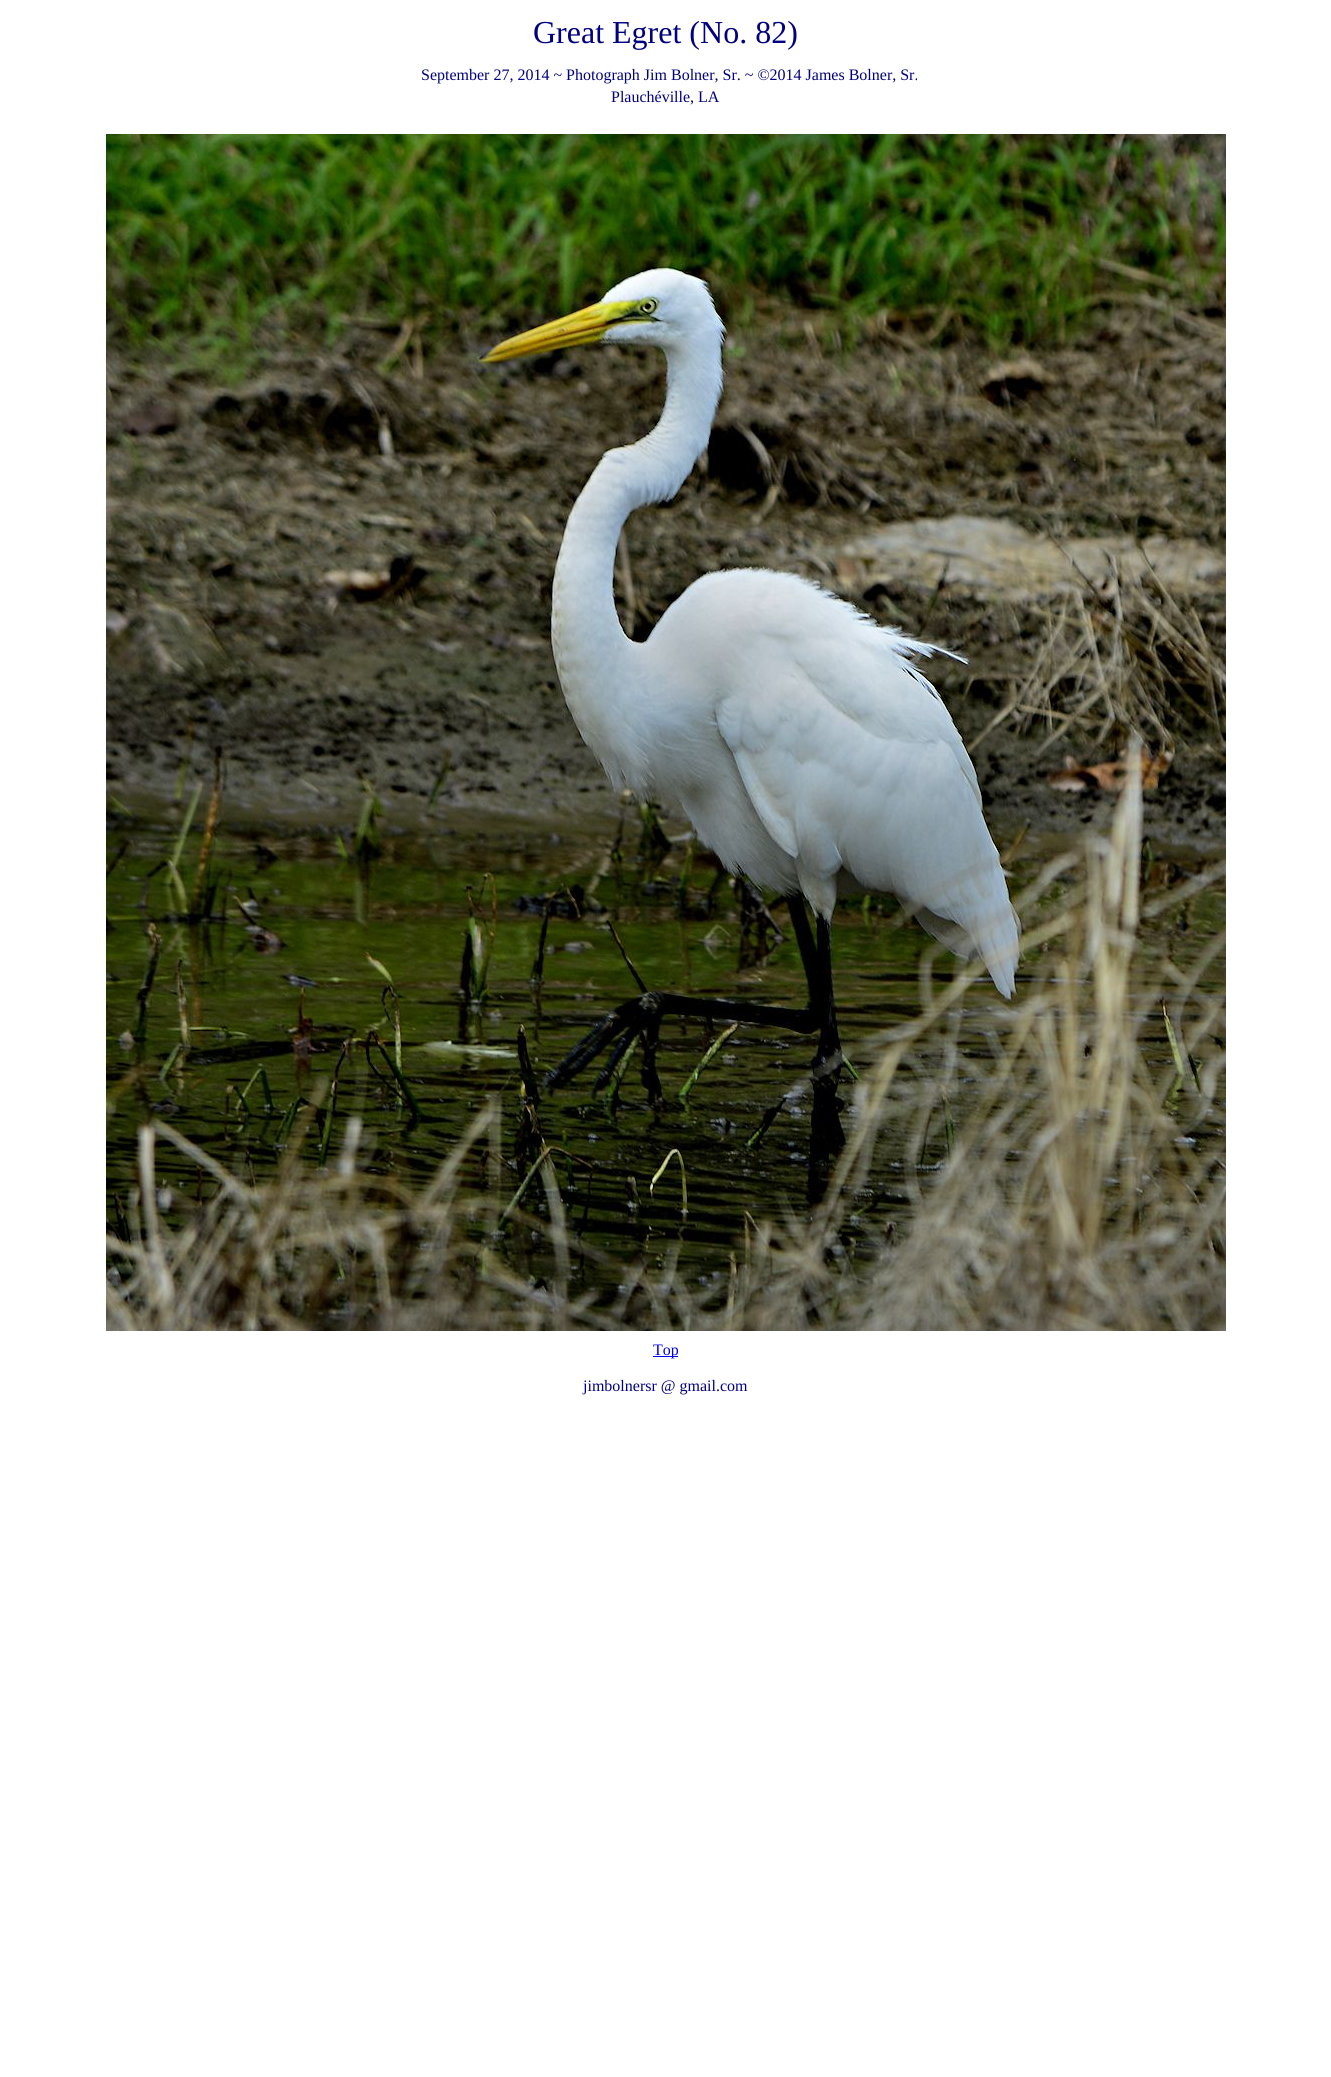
#include <cairo.h>
#include <math.h>
#include <stddef.h>

static cairo_t *ctx;

static void use_color(int r, int g, int b) {
    cairo_set_source_rgb(ctx, r / 255.0, g / 255.0, b / 255.0);
}

static void picture(const char *path, double x, double y, double w, double h) {
    cairo_surface_t *image = cairo_image_surface_create_from_png(path);
    cairo_save(ctx);
    cairo_set_source_surface(ctx, image, x, y);
    cairo_rectangle(ctx, x, y, w, h);
    cairo_fill(ctx);
    cairo_restore(ctx);
    cairo_surface_destroy(image);
}

int main(void) {
    cairo_surface_t *surface = cairo_image_surface_create(CAIRO_FORMAT_RGB24, 1331, 2077);
    ctx = cairo_create(surface);
    cairo_font_options_t *options = cairo_font_options_create();
    cairo_font_options_set_hint_metrics(options, CAIRO_HINT_METRICS_OFF);
    cairo_font_options_set_hint_style(options, CAIRO_HINT_STYLE_NONE);
    cairo_set_font_options(ctx, options);
    cairo_set_miter_limit(ctx, 4);
    use_color(255, 255, 255);
    cairo_paint(ctx);
    cairo_select_font_face(ctx, "Liberation Serif", CAIRO_FONT_SLANT_NORMAL, CAIRO_FONT_WEIGHT_NORMAL);
    cairo_set_font_size(ctx, 32);
    use_color(0, 0, 128);
    cairo_move_to(ctx, 533, 43);
    cairo_show_text(ctx, "Great Egret (No. 82)");
    cairo_set_font_size(ctx, 16);
    cairo_move_to(ctx, 421, 80);
    cairo_show_text(ctx, "September 27, 2014 ~ Photograph Jim Bolner, Sr. ~ ©2014 James Bolner, Sr.");
    cairo_move_to(ctx, 611, 102);
    cairo_show_text(ctx, "Plauchéville, LA");
    picture("img1.png", 106, 134, 1120, 1197);
    use_color(0, 0, 238);
    cairo_rectangle(ctx, 653, 1356, 25, 1);
    cairo_fill(ctx);
    cairo_move_to(ctx, 653, 1355);
    cairo_show_text(ctx, "Top");
    use_color(0, 0, 128);
    cairo_move_to(ctx, 583, 1391);
    cairo_show_text(ctx, "jimbolnersr @ gmail.com");
    cairo_surface_write_to_png(surface, "result.png");
    cairo_font_options_destroy(options);
    cairo_destroy(ctx);
    cairo_surface_destroy(surface);
    return 0;
}
